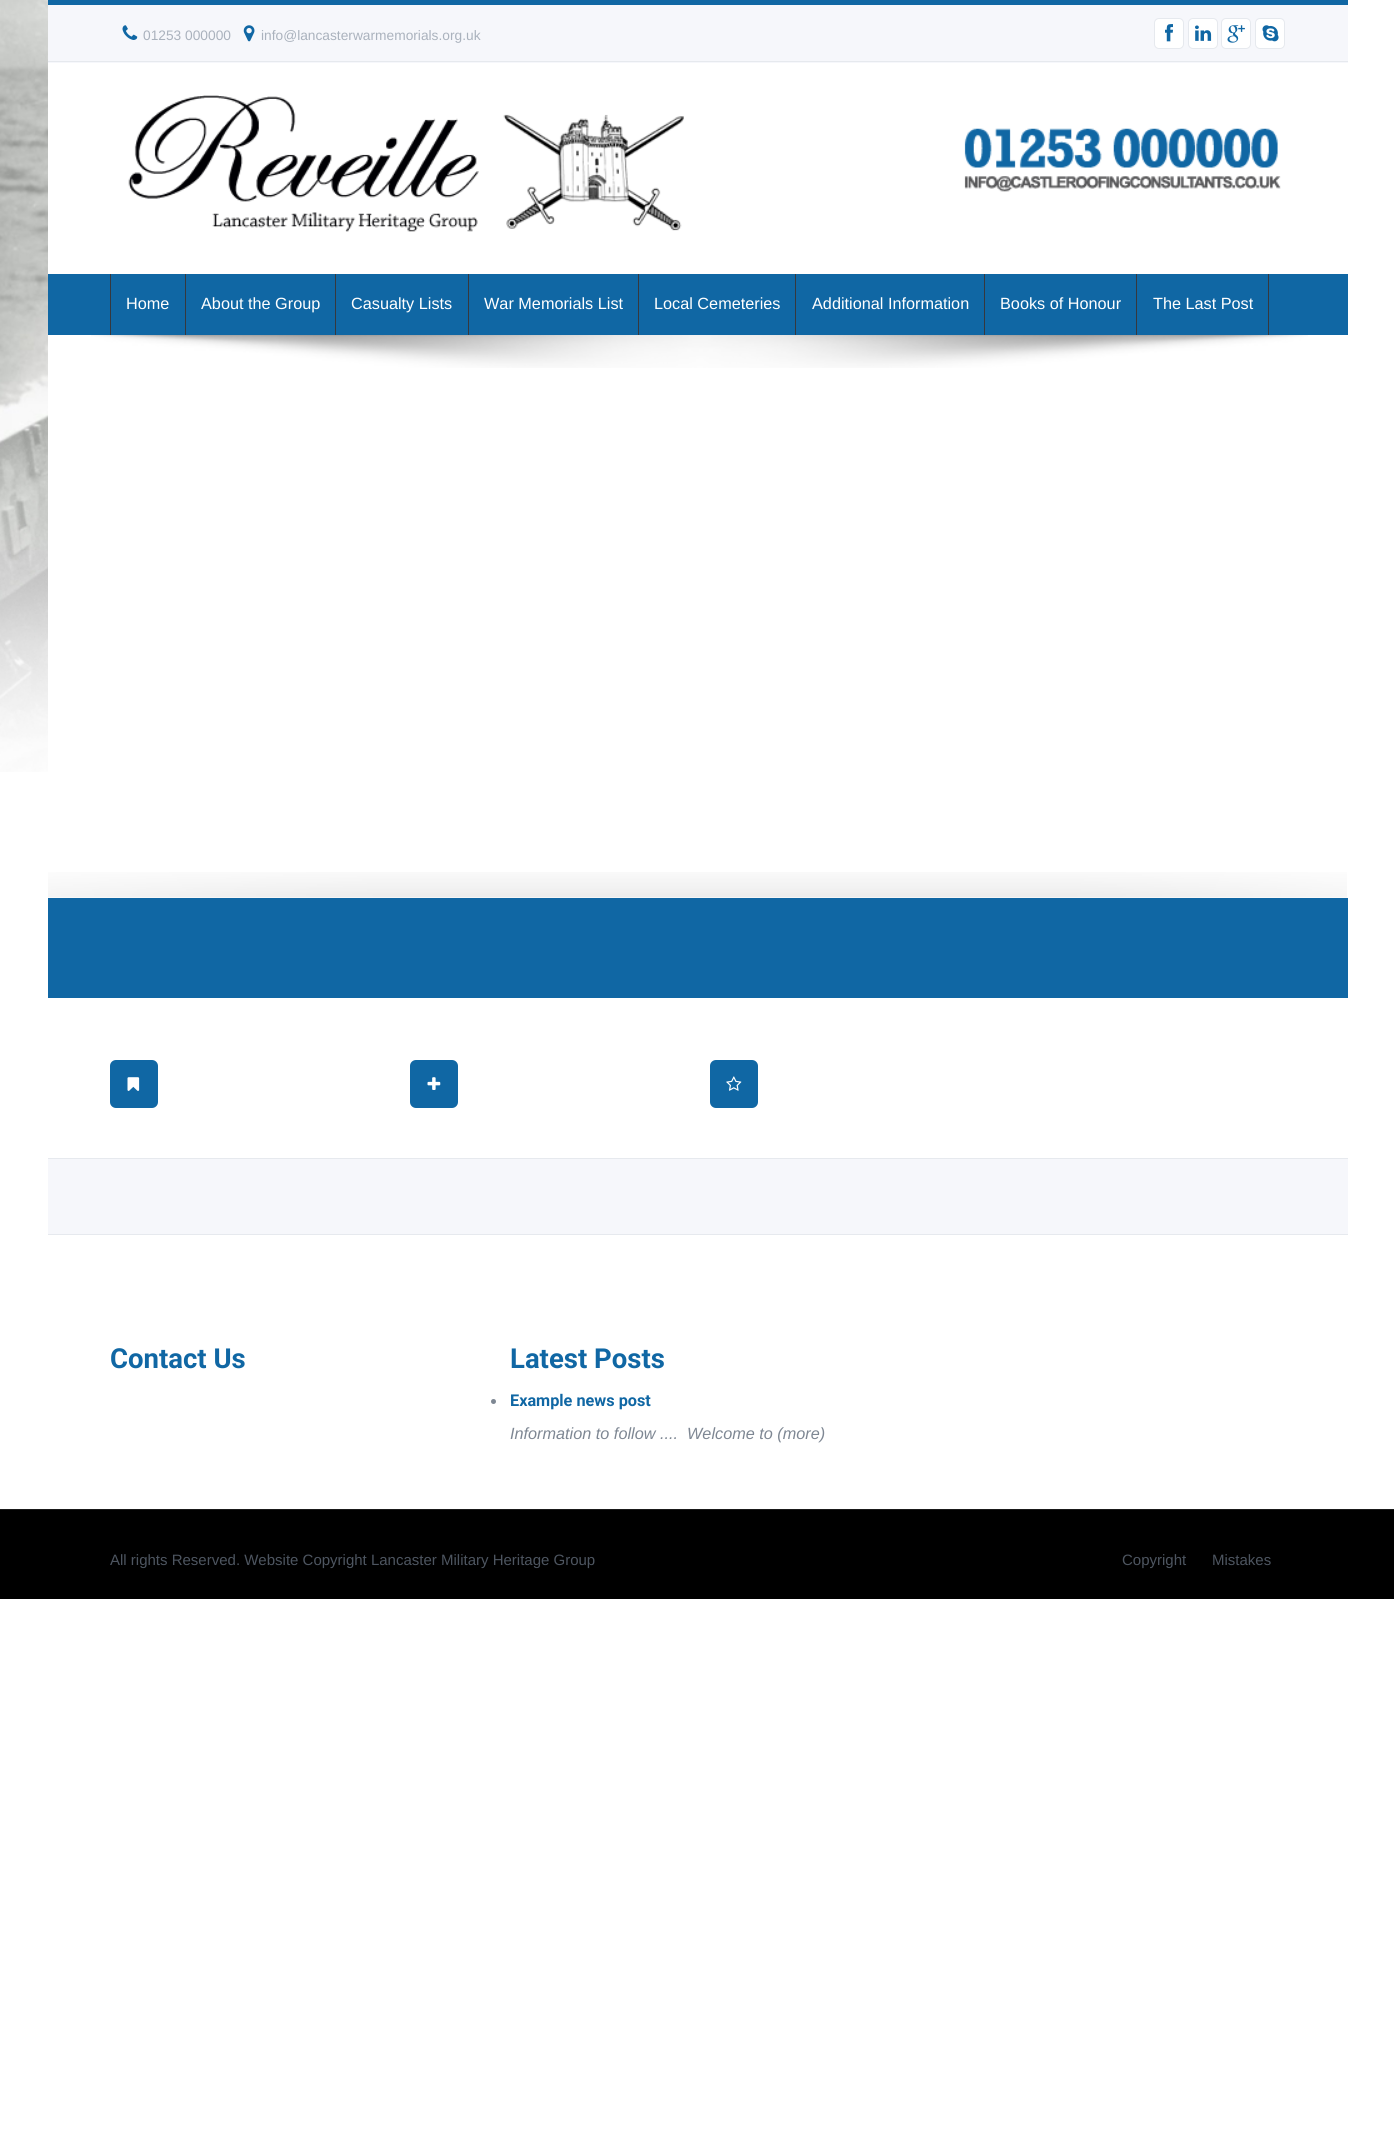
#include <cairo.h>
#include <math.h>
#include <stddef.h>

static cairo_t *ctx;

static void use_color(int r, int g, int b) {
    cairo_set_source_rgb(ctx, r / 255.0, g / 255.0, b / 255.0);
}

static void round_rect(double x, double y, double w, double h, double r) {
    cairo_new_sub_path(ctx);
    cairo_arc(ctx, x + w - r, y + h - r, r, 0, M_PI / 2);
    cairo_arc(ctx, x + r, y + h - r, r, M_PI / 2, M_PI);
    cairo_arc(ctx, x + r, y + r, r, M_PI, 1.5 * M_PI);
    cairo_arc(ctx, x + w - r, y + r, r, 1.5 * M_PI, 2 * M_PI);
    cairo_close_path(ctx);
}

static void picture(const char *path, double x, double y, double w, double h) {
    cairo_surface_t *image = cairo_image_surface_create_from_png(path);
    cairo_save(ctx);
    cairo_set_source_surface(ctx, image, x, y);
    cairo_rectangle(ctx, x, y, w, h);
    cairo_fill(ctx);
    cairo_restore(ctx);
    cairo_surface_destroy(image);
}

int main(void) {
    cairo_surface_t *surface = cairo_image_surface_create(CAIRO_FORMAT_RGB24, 1394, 2145);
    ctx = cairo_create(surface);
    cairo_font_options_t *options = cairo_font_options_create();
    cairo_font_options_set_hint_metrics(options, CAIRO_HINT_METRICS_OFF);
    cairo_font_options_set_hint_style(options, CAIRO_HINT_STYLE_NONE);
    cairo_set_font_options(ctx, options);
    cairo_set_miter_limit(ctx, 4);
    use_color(255, 255, 255);
    cairo_paint(ctx);
    picture("img1.png", 0, 0, 48, 772);
    use_color(246, 247, 251);
    cairo_rectangle(ctx, 48, 5, 1300, 58);
    cairo_fill(ctx);
    use_color(16, 103, 164);
    cairo_rectangle(ctx, 48, 0, 1300, 5);
    cairo_fill(ctx);
    use_color(230, 233, 238);
    cairo_rectangle(ctx, 48, 61, 1300, 1);
    cairo_fill(ctx);
    picture("img2.png", 122, 25, 16, 15);
    cairo_select_font_face(ctx, "Liberation Sans", CAIRO_FONT_SLANT_NORMAL, CAIRO_FONT_WEIGHT_NORMAL);
    cairo_set_font_size(ctx, 13.75);
    use_color(170, 178, 189);
    cairo_move_to(ctx, 143, 40);
    cairo_show_text(ctx, "01253 000000");
    picture("img3.png", 243, 25, 12, 17);
    cairo_move_to(ctx, 261, 40);
    cairo_show_text(ctx, "info@lancasterwarmemorials.org.uk");
    use_color(255, 255, 255);
    round_rect(1154.5, 18.5, 29, 30, 4.5);
    cairo_fill_preserve(ctx);
    use_color(230, 233, 238);
    cairo_set_line_width(ctx, 1);
    cairo_stroke(ctx);
    picture("img4.png", 1165, 24, 8, 18);
    use_color(255, 255, 255);
    round_rect(1188.5, 18.5, 29, 30, 4.5);
    cairo_fill_preserve(ctx);
    use_color(230, 233, 238);
    cairo_stroke(ctx);
    picture("img5.png", 1195, 25, 17, 16);
    use_color(255, 255, 255);
    round_rect(1221.5, 18.5, 29, 30, 4.5);
    cairo_fill_preserve(ctx);
    use_color(230, 233, 238);
    cairo_stroke(ctx);
    picture("img6.png", 1227, 25, 18, 18);
    use_color(255, 255, 255);
    round_rect(1255.5, 18.5, 29, 30, 4.5);
    cairo_fill_preserve(ctx);
    use_color(230, 233, 238);
    cairo_stroke(ctx);
    picture("img7.png", 1262, 25, 17, 17);
    picture("img8.png", 128, 95, 556, 137);
    picture("img9.png", 964, 128, 317, 64);
    use_color(16, 103, 164);
    cairo_rectangle(ctx, 48, 274, 1300, 61);
    cairo_fill(ctx);
    use_color(54, 56, 62);
    cairo_rectangle(ctx, 110, 274, 1, 61);
    cairo_fill(ctx);
    cairo_set_font_size(ctx, 16.25);
    use_color(255, 255, 255);
    cairo_move_to(ctx, 126, 309);
    cairo_show_text(ctx, "Home");
    use_color(54, 56, 62);
    cairo_rectangle(ctx, 185, 274, 1, 61);
    cairo_fill(ctx);
    use_color(255, 255, 255);
    cairo_move_to(ctx, 201, 309);
    cairo_show_text(ctx, "About the Group");
    use_color(54, 56, 62);
    cairo_rectangle(ctx, 335, 274, 1, 61);
    cairo_fill(ctx);
    use_color(255, 255, 255);
    cairo_move_to(ctx, 351, 309);
    cairo_show_text(ctx, "Casualty Lists");
    use_color(54, 56, 62);
    cairo_rectangle(ctx, 468, 274, 1, 61);
    cairo_fill(ctx);
    use_color(255, 255, 255);
    cairo_move_to(ctx, 484, 309);
    cairo_show_text(ctx, "War Memorials List");
    use_color(54, 56, 62);
    cairo_rectangle(ctx, 638, 274, 1, 61);
    cairo_fill(ctx);
    use_color(255, 255, 255);
    cairo_move_to(ctx, 654, 309);
    cairo_show_text(ctx, "Local Cemeteries");
    use_color(54, 56, 62);
    cairo_rectangle(ctx, 795, 274, 1, 61);
    cairo_fill(ctx);
    use_color(255, 255, 255);
    cairo_move_to(ctx, 812, 309);
    cairo_show_text(ctx, "Additional Information");
    use_color(54, 56, 62);
    cairo_rectangle(ctx, 984, 274, 1, 61);
    cairo_fill(ctx);
    use_color(255, 255, 255);
    cairo_move_to(ctx, 1000, 309);
    cairo_show_text(ctx, "Books of Honour");
    use_color(54, 56, 62);
    cairo_rectangle(ctx, 1268, 274, 1, 61);
    cairo_fill(ctx);
    cairo_rectangle(ctx, 1136, 274, 1, 61);
    cairo_fill(ctx);
    use_color(255, 255, 255);
    cairo_move_to(ctx, 1153, 309);
    cairo_show_text(ctx, "The Last Post");
    picture("img10.png", 91, 335, 1217, 33);
    picture("img11.png", 48, 872, 1299, 26);
    use_color(16, 103, 164);
    cairo_rectangle(ctx, 48, 898, 1300, 100);
    cairo_fill(ctx);
    round_rect(110, 1060, 48, 48, 6);
    cairo_fill(ctx);
    picture("img12.png", 127, 1077, 13, 14);
    round_rect(410, 1060, 48, 48, 6);
    cairo_fill(ctx);
    picture("img13.png", 427, 1077, 14, 13);
    round_rect(710, 1060, 48, 48, 6);
    cairo_fill(ctx);
    picture("img14.png", 726, 1076, 16, 15);
    use_color(246, 247, 251);
    cairo_rectangle(ctx, 48, 1159, 1300, 75);
    cairo_fill(ctx);
    use_color(230, 233, 238);
    cairo_rectangle(ctx, 48, 1158, 1300, 1);
    cairo_fill(ctx);
    cairo_rectangle(ctx, 48, 1234, 1300, 1);
    cairo_fill(ctx);
    cairo_select_font_face(ctx, "Roboto", CAIRO_FONT_SLANT_NORMAL, CAIRO_FONT_WEIGHT_BOLD);
    cairo_set_font_size(ctx, 27.5);
    use_color(16, 103, 164);
    cairo_move_to(ctx, 110, 1368);
    cairo_show_text(ctx, "Contact Us");
    cairo_move_to(ctx, 510, 1368);
    cairo_show_text(ctx, "Latest Posts");
    use_color(126, 135, 147);
    cairo_new_path(ctx);
    cairo_arc(ctx, 493.5, 1401.5, 2.5, 0, 2 * M_PI);
    cairo_fill(ctx);
    cairo_set_font_size(ctx, 16.25);
    use_color(16, 103, 164);
    cairo_move_to(ctx, 510, 1406);
    cairo_show_text(ctx, "Example news post");
    cairo_select_font_face(ctx, "Liberation Sans", CAIRO_FONT_SLANT_ITALIC, CAIRO_FONT_WEIGHT_NORMAL);
    use_color(126, 135, 147);
    cairo_move_to(ctx, 510, 1439);
    cairo_show_text(ctx, "Information to follow ....  Welcome to (more)");
    use_color(0, 0, 0);
    cairo_rectangle(ctx, 0, 1510, 1394, 89);
    cairo_fill(ctx);
    use_color(26, 26, 26);
    cairo_rectangle(ctx, 0, 1509, 1394, 1);
    cairo_fill(ctx);
    cairo_select_font_face(ctx, "Liberation Sans", CAIRO_FONT_SLANT_NORMAL, CAIRO_FONT_WEIGHT_NORMAL);
    cairo_set_font_size(ctx, 15);
    use_color(77, 85, 96);
    cairo_move_to(ctx, 110, 1565);
    cairo_show_text(ctx, "All rights Reserved. Website Copyright Lancaster Military Heritage Group");
    cairo_move_to(ctx, 1122, 1565);
    cairo_show_text(ctx, "Copyright");
    cairo_move_to(ctx, 1212, 1565);
    cairo_show_text(ctx, "Mistakes");
    cairo_surface_write_to_png(surface, "result.png");
    cairo_font_options_destroy(options);
    cairo_destroy(ctx);
    cairo_surface_destroy(surface);
    return 0;
}
